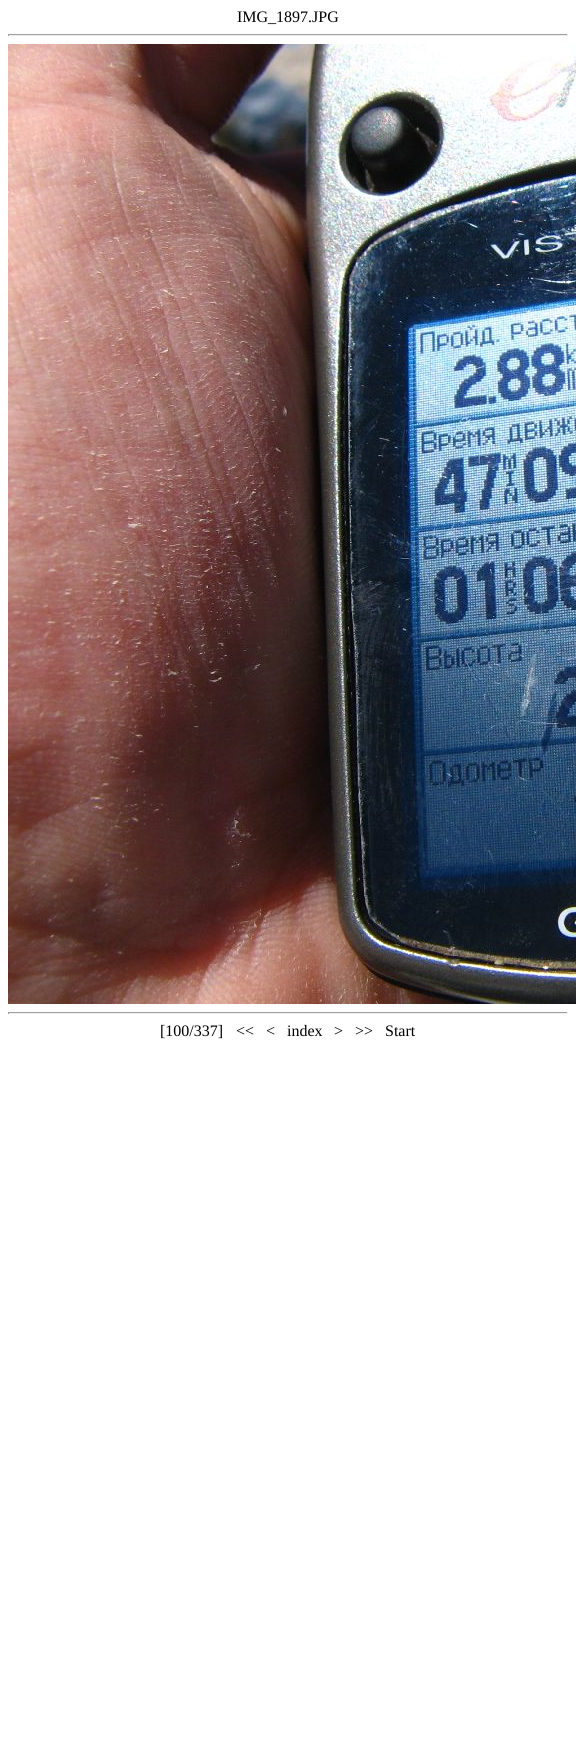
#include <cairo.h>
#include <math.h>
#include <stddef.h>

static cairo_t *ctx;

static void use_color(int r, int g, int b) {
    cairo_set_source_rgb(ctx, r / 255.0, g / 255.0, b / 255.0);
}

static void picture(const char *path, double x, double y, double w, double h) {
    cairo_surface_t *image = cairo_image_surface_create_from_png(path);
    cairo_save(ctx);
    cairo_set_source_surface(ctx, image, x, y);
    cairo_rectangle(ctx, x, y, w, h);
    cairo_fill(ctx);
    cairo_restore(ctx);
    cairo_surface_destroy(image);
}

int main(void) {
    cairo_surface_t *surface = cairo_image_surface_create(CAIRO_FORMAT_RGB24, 576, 1751);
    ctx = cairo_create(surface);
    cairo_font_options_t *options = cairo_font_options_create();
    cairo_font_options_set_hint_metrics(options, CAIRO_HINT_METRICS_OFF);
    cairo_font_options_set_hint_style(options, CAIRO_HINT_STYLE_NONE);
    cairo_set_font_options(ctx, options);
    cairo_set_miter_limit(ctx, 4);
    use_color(255, 255, 255);
    cairo_paint(ctx);
    cairo_select_font_face(ctx, "Liberation Serif", CAIRO_FONT_SLANT_NORMAL, CAIRO_FONT_WEIGHT_NORMAL);
    cairo_set_font_size(ctx, 16);
    use_color(0, 0, 0);
    cairo_move_to(ctx, 237, 22);
    cairo_show_text(ctx, "IMG_1897.JPG");
    use_color(159, 159, 159);
    cairo_rectangle(ctx, 8, 34, 560, 1);
    cairo_fill(ctx);
    use_color(238, 238, 238);
    cairo_rectangle(ctx, 567, 34, 1, 2);
    cairo_fill(ctx);
    cairo_rectangle(ctx, 8, 35, 560, 1);
    cairo_fill(ctx);
    use_color(159, 159, 159);
    cairo_rectangle(ctx, 8, 34, 1, 2);
    cairo_fill(ctx);
    picture("img1.png", 8, 44, 568, 960);
    cairo_rectangle(ctx, 8, 1012, 560, 1);
    cairo_fill(ctx);
    use_color(238, 238, 238);
    cairo_rectangle(ctx, 567, 1012, 1, 2);
    cairo_fill(ctx);
    cairo_rectangle(ctx, 8, 1013, 560, 1);
    cairo_fill(ctx);
    use_color(159, 159, 159);
    cairo_rectangle(ctx, 8, 1012, 1, 2);
    cairo_fill(ctx);
    use_color(0, 0, 0);
    cairo_move_to(ctx, 160, 1036);
    cairo_show_text(ctx, "[100/337]");
    cairo_move_to(ctx, 236, 1036);
    cairo_show_text(ctx, "<<");
    cairo_move_to(ctx, 266, 1036);
    cairo_show_text(ctx, "<");
    cairo_move_to(ctx, 287, 1036);
    cairo_show_text(ctx, "index");
    cairo_move_to(ctx, 334, 1036);
    cairo_show_text(ctx, ">");
    cairo_move_to(ctx, 355, 1036);
    cairo_show_text(ctx, ">>");
    cairo_move_to(ctx, 385, 1036);
    cairo_show_text(ctx, "Start");
    cairo_surface_write_to_png(surface, "result.png");
    cairo_font_options_destroy(options);
    cairo_destroy(ctx);
    cairo_surface_destroy(surface);
    return 0;
}
